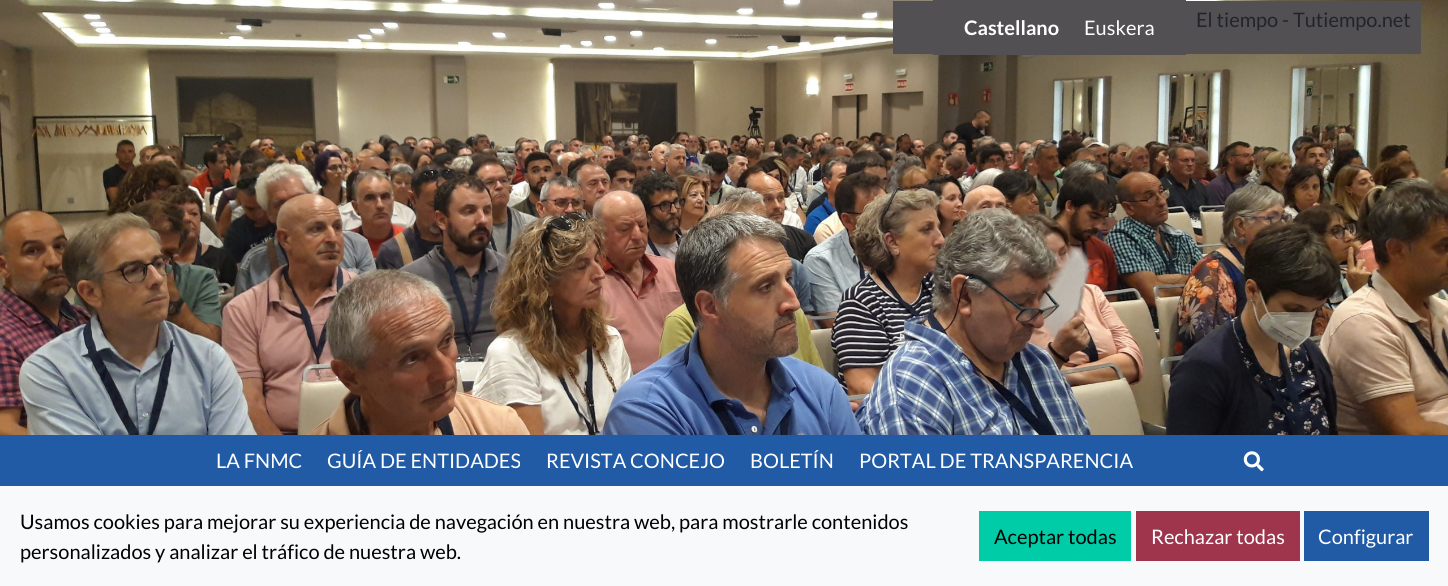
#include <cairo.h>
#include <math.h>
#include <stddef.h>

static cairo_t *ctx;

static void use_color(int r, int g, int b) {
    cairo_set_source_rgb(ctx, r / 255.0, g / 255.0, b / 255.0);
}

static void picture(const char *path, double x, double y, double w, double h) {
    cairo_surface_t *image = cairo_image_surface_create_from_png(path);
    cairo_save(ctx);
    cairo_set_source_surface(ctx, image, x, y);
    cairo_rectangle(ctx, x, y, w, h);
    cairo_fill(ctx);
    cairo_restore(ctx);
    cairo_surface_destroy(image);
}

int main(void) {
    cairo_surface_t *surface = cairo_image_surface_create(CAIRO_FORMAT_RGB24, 1448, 586);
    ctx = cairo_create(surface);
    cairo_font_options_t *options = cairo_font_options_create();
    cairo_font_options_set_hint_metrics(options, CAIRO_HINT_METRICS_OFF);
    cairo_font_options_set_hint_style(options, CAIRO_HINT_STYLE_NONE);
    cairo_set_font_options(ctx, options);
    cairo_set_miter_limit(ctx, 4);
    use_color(255, 255, 255);
    cairo_paint(ctx);
    picture("img1.png", 0, 0, 1448, 435);
    use_color(82, 80, 82);
    cairo_rectangle(ctx, 893, 1, 40, 53);
    cairo_fill(ctx);
    cairo_rectangle(ctx, 933, 0, 253, 55);
    cairo_fill(ctx);
    cairo_select_font_face(ctx, "Lato", CAIRO_FONT_SLANT_NORMAL, CAIRO_FONT_WEIGHT_BOLD);
    cairo_set_font_size(ctx, 20);
    use_color(255, 255, 255);
    cairo_move_to(ctx, 964, 35);
    cairo_show_text(ctx, "Castellano");
    cairo_select_font_face(ctx, "Lato", CAIRO_FONT_SLANT_NORMAL, CAIRO_FONT_WEIGHT_NORMAL);
    cairo_move_to(ctx, 1084, 35);
    cairo_show_text(ctx, "Euskera");
    use_color(82, 80, 82);
    cairo_rectangle(ctx, 1186, 1, 235, 53);
    cairo_fill(ctx);
    use_color(33, 37, 41);
    cairo_move_to(ctx, 1196, 27);
    cairo_show_text(ctx, "El tiempo - Tutiempo.net");
    use_color(33, 90, 165);
    cairo_rectangle(ctx, 0, 435, 1448, 51);
    cairo_fill(ctx);
    use_color(255, 255, 255);
    cairo_move_to(ctx, 216, 468);
    cairo_show_text(ctx, "LA FNMC");
    cairo_move_to(ctx, 327, 468);
    cairo_show_text(ctx, "GUÍA DE ENTIDADES");
    cairo_move_to(ctx, 546, 468);
    cairo_show_text(ctx, "REVISTA CONCEJO");
    cairo_move_to(ctx, 750, 468);
    cairo_show_text(ctx, "BOLETÍN");
    cairo_move_to(ctx, 859, 468);
    cairo_show_text(ctx, "PORTAL DE TRANSPARENCIA");
    picture("img2.png", 1243, 451, 21, 21);
    use_color(248, 249, 250);
    cairo_rectangle(ctx, 0, 486, 1448, 100);
    cairo_fill(ctx);
    use_color(0, 0, 0);
    cairo_move_to(ctx, 20, 529);
    cairo_show_text(ctx, "Usamos cookies para mejorar su experiencia de navegación en nuestra web, para mostrarle contenidos");
    cairo_move_to(ctx, 20, 559);
    cairo_show_text(ctx, "personalizados y analizar el tráfico de nuestra web.");
    use_color(0, 204, 168);
    cairo_rectangle(ctx, 979, 511, 152, 50);
    cairo_fill(ctx);
    use_color(0, 0, 0);
    cairo_move_to(ctx, 994, 544);
    cairo_show_text(ctx, "Aceptar todas");
    use_color(158, 53, 77);
    cairo_rectangle(ctx, 1136, 511, 164, 50);
    cairo_fill(ctx);
    use_color(255, 255, 255);
    cairo_move_to(ctx, 1151, 544);
    cairo_show_text(ctx, "Rechazar todas");
    use_color(33, 90, 165);
    cairo_rectangle(ctx, 1304, 511, 125, 50);
    cairo_fill(ctx);
    use_color(255, 255, 255);
    cairo_move_to(ctx, 1318, 544);
    cairo_show_text(ctx, "Configurar");
    cairo_surface_write_to_png(surface, "result.png");
    cairo_font_options_destroy(options);
    cairo_destroy(ctx);
    cairo_surface_destroy(surface);
    return 0;
}
